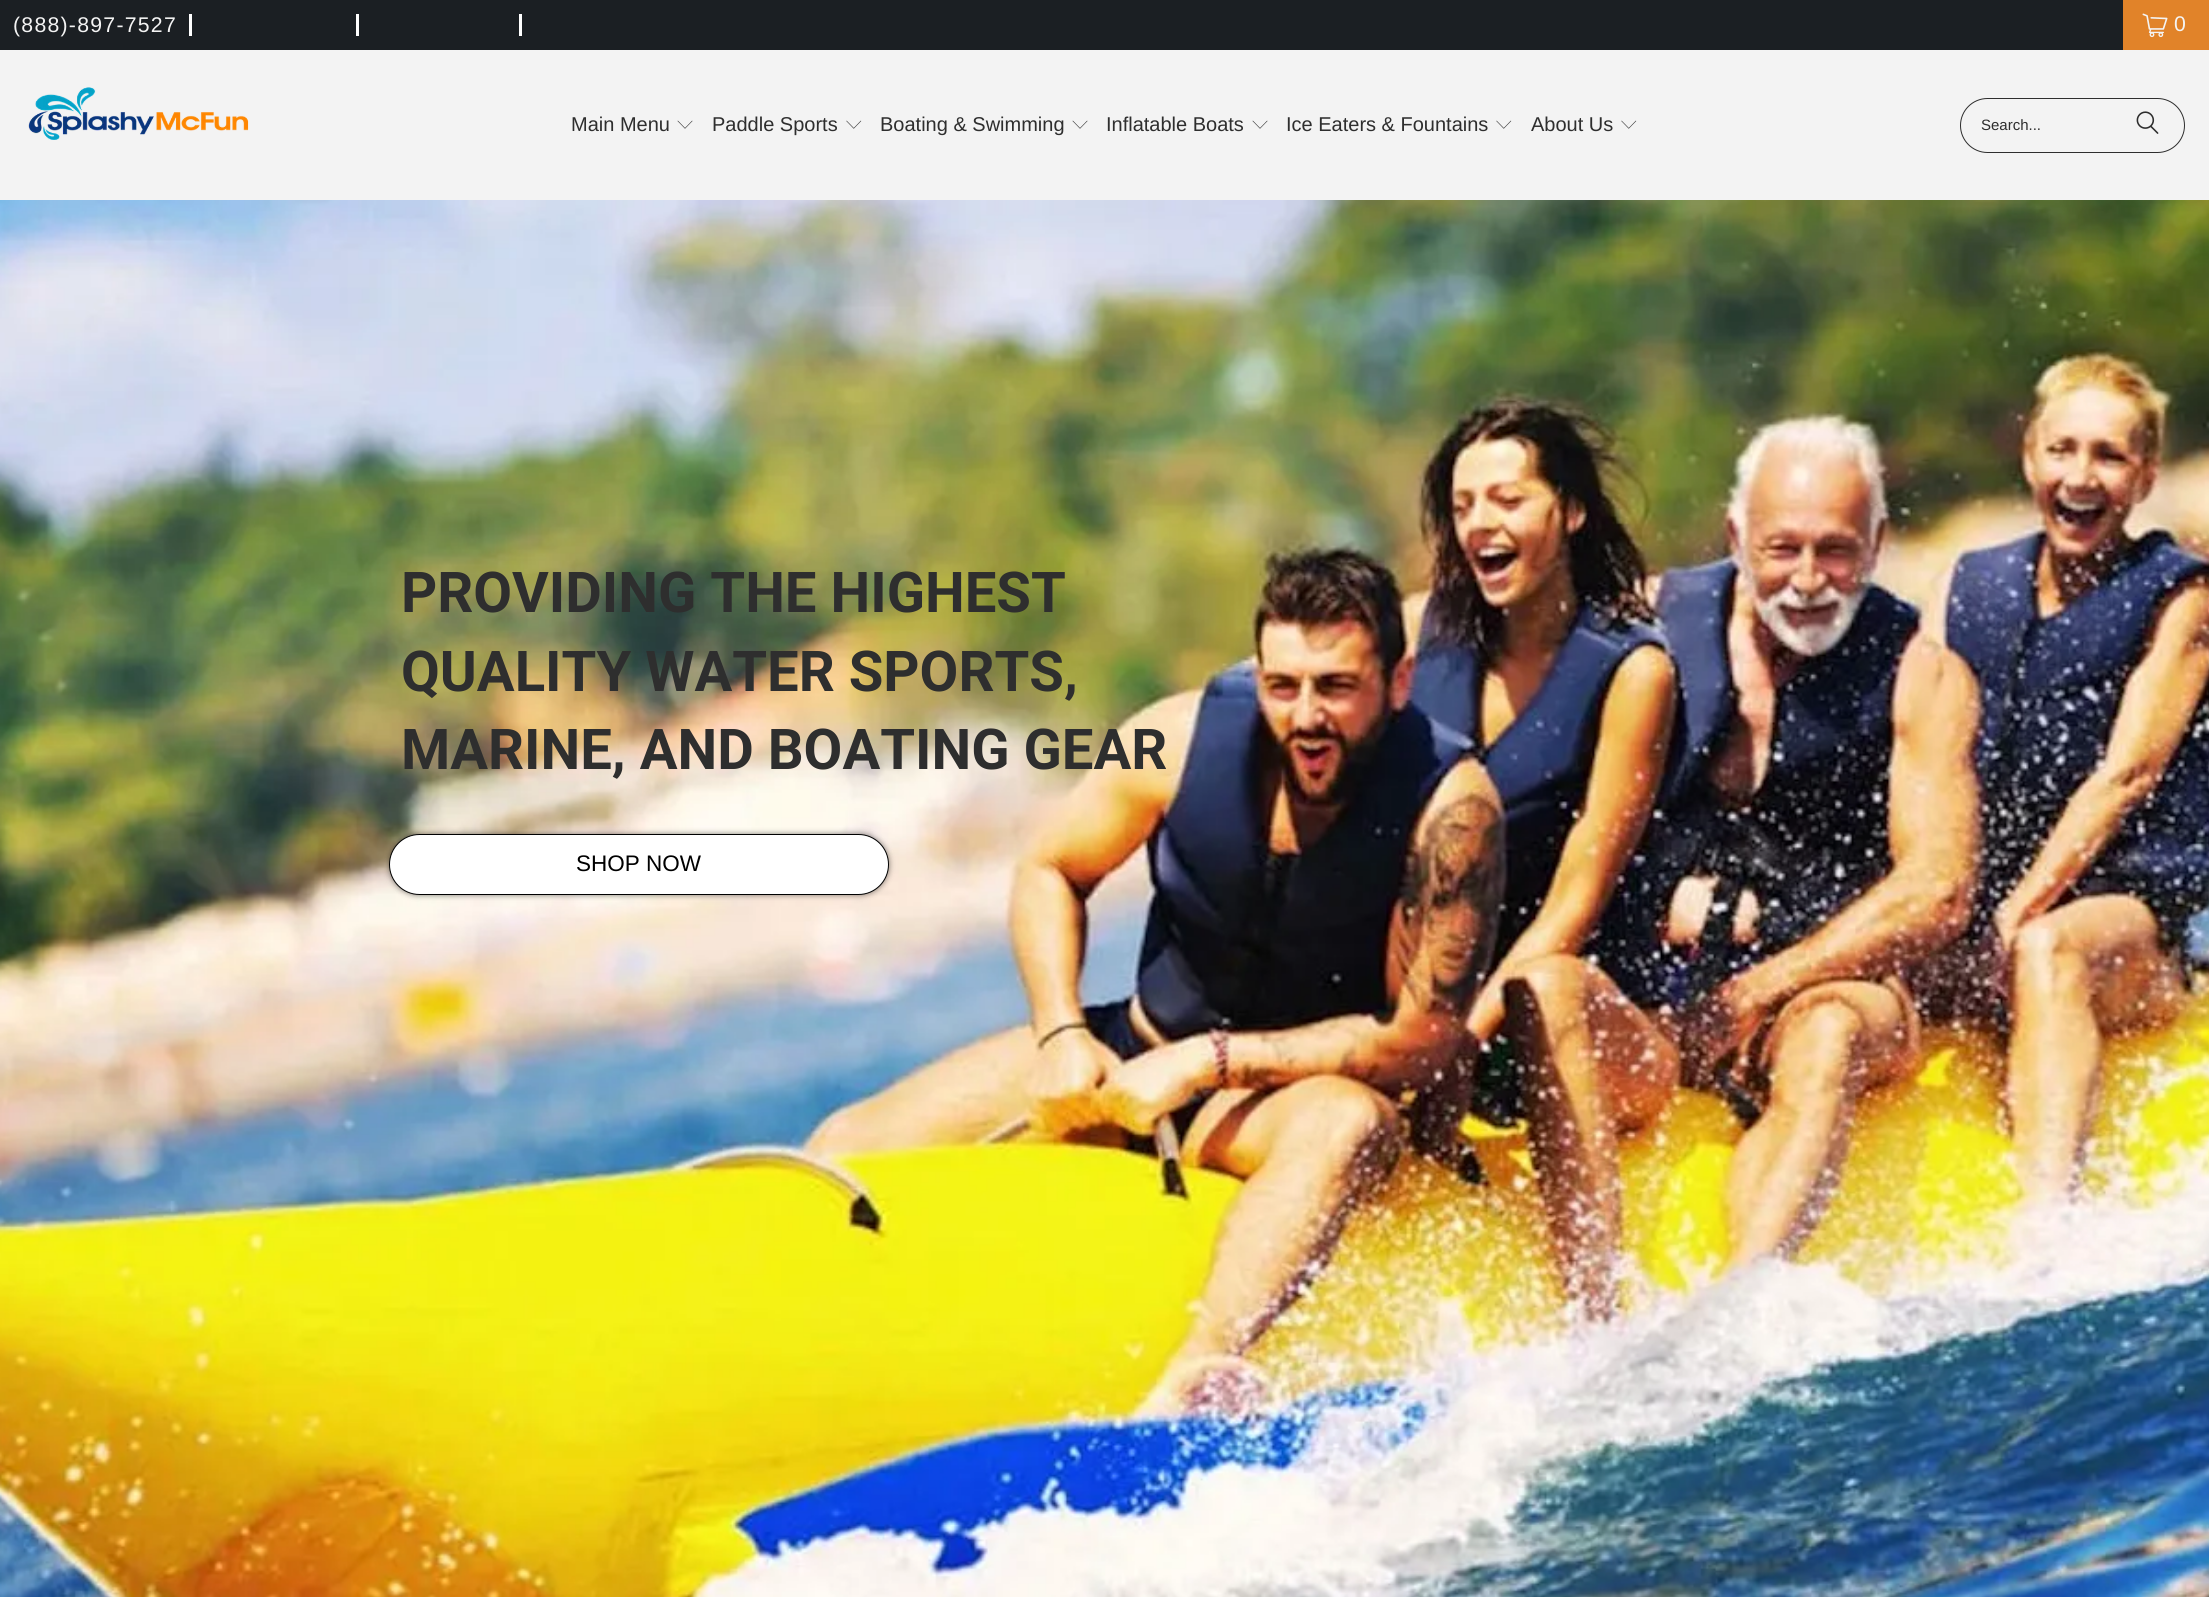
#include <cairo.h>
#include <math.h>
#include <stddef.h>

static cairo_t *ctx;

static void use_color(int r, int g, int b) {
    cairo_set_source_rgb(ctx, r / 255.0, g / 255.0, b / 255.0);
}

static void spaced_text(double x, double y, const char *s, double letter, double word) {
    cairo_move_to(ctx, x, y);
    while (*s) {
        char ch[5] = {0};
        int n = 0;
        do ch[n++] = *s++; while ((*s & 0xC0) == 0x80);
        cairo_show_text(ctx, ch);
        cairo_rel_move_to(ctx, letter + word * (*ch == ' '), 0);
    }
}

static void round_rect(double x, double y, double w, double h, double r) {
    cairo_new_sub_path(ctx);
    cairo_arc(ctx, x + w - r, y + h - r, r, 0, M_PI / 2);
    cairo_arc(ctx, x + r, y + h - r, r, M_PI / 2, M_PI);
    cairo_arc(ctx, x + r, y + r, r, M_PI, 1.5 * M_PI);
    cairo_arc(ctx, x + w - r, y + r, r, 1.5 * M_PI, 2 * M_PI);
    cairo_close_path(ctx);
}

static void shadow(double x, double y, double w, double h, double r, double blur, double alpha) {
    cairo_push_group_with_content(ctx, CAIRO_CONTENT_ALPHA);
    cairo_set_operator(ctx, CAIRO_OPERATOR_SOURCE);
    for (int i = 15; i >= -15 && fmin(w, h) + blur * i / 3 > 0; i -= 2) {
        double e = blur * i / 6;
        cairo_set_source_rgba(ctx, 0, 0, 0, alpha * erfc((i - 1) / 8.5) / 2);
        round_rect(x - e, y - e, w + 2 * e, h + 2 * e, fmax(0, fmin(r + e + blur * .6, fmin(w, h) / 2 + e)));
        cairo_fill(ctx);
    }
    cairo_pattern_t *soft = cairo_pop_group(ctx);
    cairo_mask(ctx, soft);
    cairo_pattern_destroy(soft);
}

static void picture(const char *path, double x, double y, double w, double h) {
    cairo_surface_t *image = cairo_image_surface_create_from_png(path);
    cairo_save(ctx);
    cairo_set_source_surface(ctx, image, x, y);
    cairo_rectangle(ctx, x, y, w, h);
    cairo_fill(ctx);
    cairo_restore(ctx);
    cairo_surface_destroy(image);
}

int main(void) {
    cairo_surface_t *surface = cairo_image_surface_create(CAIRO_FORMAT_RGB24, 2209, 1597);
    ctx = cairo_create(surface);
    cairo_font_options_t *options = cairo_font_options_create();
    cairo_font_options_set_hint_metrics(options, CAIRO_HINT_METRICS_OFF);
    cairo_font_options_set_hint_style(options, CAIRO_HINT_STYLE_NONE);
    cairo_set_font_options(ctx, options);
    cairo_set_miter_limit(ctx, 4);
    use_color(243, 243, 243);
    cairo_paint(ctx);
    use_color(27, 31, 35);
    cairo_rectangle(ctx, 0, 0, 2123, 50);
    cairo_fill(ctx);
    use_color(255, 255, 255);
    cairo_rectangle(ctx, 189, 14, 3, 22);
    cairo_fill(ctx);
    cairo_select_font_face(ctx, "Liberation Sans", CAIRO_FONT_SLANT_NORMAL, CAIRO_FONT_WEIGHT_NORMAL);
    cairo_set_font_size(ctx, 21.25);
    use_color(244, 244, 244);
    spaced_text(13, 32, "(888)-897-7527", 1.25, 0);
    use_color(255, 255, 255);
    cairo_rectangle(ctx, 356, 14, 3, 22);
    cairo_fill(ctx);
    cairo_rectangle(ctx, 519, 14, 3, 22);
    cairo_fill(ctx);
    use_color(225, 131, 41);
    cairo_rectangle(ctx, 2123, 0, 86, 50);
    cairo_fill(ctx);
    picture("img1.png", 2142, 13, 26, 25);
    use_color(244, 244, 244);
    spaced_text(2174, 31, "0", 1.25, 0);
    picture("img2.png", 28, 87, 221, 53);
    cairo_set_font_size(ctx, 20);
    use_color(46, 46, 46);
    cairo_move_to(ctx, 571, 131);
    cairo_show_text(ctx, "Main Menu");
    picture("img3.png", 677, 120, 16, 9);
    cairo_move_to(ctx, 712, 131);
    cairo_show_text(ctx, "Paddle Sports");
    picture("img4.png", 846, 120, 16, 9);
    cairo_move_to(ctx, 880, 131);
    cairo_show_text(ctx, "Boating & Swimming");
    picture("img3.png", 1072, 120, 16, 9);
    cairo_move_to(ctx, 1106, 131);
    cairo_show_text(ctx, "Inflatable Boats");
    picture("img3.png", 1252, 120, 16, 9);
    cairo_move_to(ctx, 1286, 131);
    cairo_show_text(ctx, "Ice Eaters & Fountains");
    picture("img4.png", 1496, 120, 16, 9);
    cairo_move_to(ctx, 1531, 131);
    cairo_show_text(ctx, "About Us");
    picture("img4.png", 1621, 120, 16, 9);
    round_rect(1960.5, 98.5, 224, 54, 27);
    cairo_set_line_width(ctx, 1);
    cairo_stroke(ctx);
    cairo_set_font_size(ctx, 15);
    cairo_move_to(ctx, 1981, 130);
    cairo_show_text(ctx, "Search...");
    picture("img5.png", 2136, 111, 23, 23);
    picture("img6.png", 0, 200, 2209, 1397);
    cairo_select_font_face(ctx, "Roboto", CAIRO_FONT_SLANT_NORMAL, CAIRO_FONT_WEIGHT_BOLD);
    cairo_set_font_size(ctx, 56.25);
    cairo_move_to(ctx, 401, 612);
    cairo_show_text(ctx, "PROVIDING THE HIGHEST");
    cairo_move_to(ctx, 401, 691);
    cairo_show_text(ctx, "QUALITY WATER SPORTS,");
    cairo_move_to(ctx, 401, 769);
    cairo_show_text(ctx, "MARINE, AND BOATING GEAR");
    use_color(0, 0, 0);
    shadow(389, 834, 500, 61, 30.5, 3, 0.5);
    use_color(255, 255, 255);
    round_rect(389.5, 834.5, 499, 60, 30);
    cairo_fill_preserve(ctx);
    use_color(0, 0, 0);
    cairo_stroke(ctx);
    cairo_select_font_face(ctx, "Liberation Sans", CAIRO_FONT_SLANT_NORMAL, CAIRO_FONT_WEIGHT_NORMAL);
    cairo_set_font_size(ctx, 22.5);
    cairo_move_to(ctx, 576, 871);
    cairo_show_text(ctx, "SHOP NOW");
    cairo_surface_write_to_png(surface, "result.png");
    cairo_font_options_destroy(options);
    cairo_destroy(ctx);
    cairo_surface_destroy(surface);
    return 0;
}
